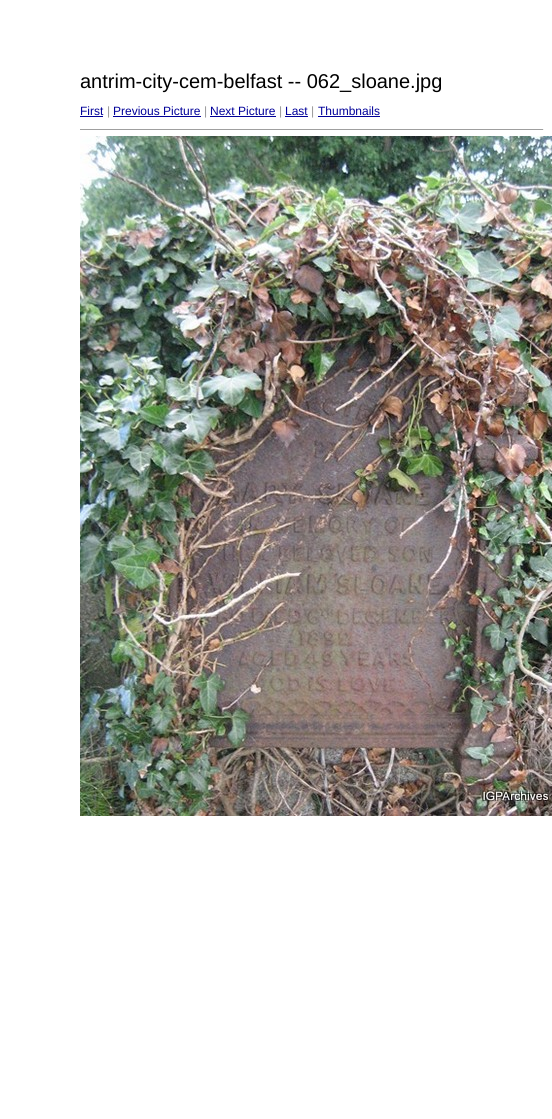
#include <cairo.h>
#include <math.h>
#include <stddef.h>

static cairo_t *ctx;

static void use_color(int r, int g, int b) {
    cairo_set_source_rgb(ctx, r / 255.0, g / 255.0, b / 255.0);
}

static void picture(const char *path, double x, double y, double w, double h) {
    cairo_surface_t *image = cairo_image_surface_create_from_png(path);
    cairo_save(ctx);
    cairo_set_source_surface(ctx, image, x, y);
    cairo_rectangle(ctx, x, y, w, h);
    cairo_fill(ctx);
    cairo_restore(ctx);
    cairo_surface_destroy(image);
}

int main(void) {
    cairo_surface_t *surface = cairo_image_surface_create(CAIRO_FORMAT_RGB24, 552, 1119);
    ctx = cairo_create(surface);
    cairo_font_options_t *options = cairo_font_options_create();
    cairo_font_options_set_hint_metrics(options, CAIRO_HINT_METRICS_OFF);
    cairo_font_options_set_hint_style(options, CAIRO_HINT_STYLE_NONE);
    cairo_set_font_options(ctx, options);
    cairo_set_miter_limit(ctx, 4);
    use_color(255, 255, 255);
    cairo_paint(ctx);
    cairo_select_font_face(ctx, "Liberation Sans", CAIRO_FONT_SLANT_NORMAL, CAIRO_FONT_WEIGHT_NORMAL);
    cairo_set_font_size(ctx, 20);
    use_color(0, 0, 0);
    cairo_move_to(ctx, 80, 88);
    cairo_show_text(ctx, "antrim-city-cem-belfast -- 062_sloane.jpg");
    cairo_set_font_size(ctx, 12);
    use_color(0, 0, 153);
    cairo_move_to(ctx, 80, 115);
    cairo_show_text(ctx, "First");
    cairo_rectangle(ctx, 80, 116, 23, 1);
    cairo_fill(ctx);
    use_color(151, 151, 151);
    cairo_move_to(ctx, 107, 115);
    cairo_show_text(ctx, "|");
    use_color(0, 0, 153);
    cairo_move_to(ctx, 113, 115);
    cairo_show_text(ctx, "Previous Picture");
    cairo_rectangle(ctx, 113, 116, 88, 1);
    cairo_fill(ctx);
    use_color(151, 151, 151);
    cairo_move_to(ctx, 204, 115);
    cairo_show_text(ctx, "|");
    use_color(0, 0, 153);
    cairo_move_to(ctx, 210, 115);
    cairo_show_text(ctx, "Next Picture");
    cairo_rectangle(ctx, 210, 116, 66, 1);
    cairo_fill(ctx);
    use_color(151, 151, 151);
    cairo_move_to(ctx, 279, 115);
    cairo_show_text(ctx, "|");
    use_color(0, 0, 153);
    cairo_move_to(ctx, 285, 115);
    cairo_show_text(ctx, "Last");
    cairo_rectangle(ctx, 285, 116, 23, 1);
    cairo_fill(ctx);
    use_color(151, 151, 151);
    cairo_move_to(ctx, 311, 115);
    cairo_show_text(ctx, "|");
    use_color(0, 0, 153);
    cairo_move_to(ctx, 318, 115);
    cairo_show_text(ctx, "Thumbnails");
    cairo_rectangle(ctx, 318, 116, 62, 1);
    cairo_fill(ctx);
    use_color(159, 159, 159);
    cairo_rectangle(ctx, 80, 129, 464, 1);
    cairo_fill(ctx);
    use_color(238, 238, 238);
    cairo_rectangle(ctx, 543, 129, 1, 1);
    cairo_fill(ctx);
    picture("img1.png", 80, 136, 472, 680);
    cairo_surface_write_to_png(surface, "result.png");
    cairo_font_options_destroy(options);
    cairo_destroy(ctx);
    cairo_surface_destroy(surface);
    return 0;
}
